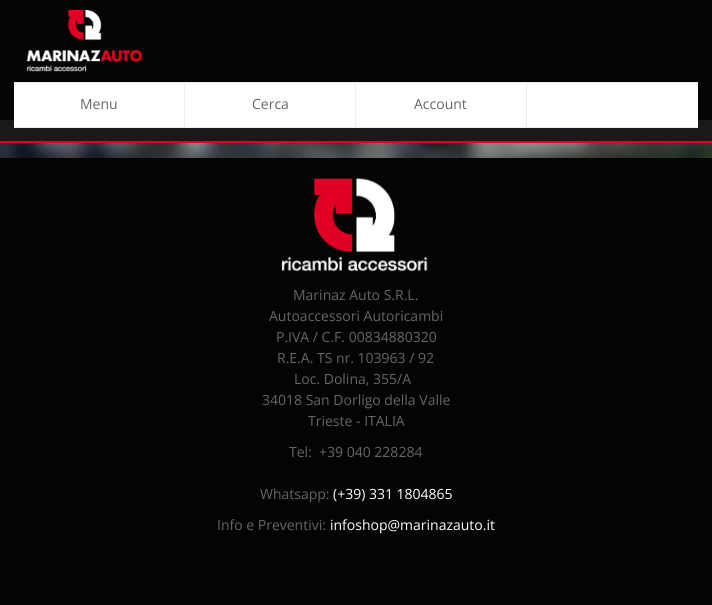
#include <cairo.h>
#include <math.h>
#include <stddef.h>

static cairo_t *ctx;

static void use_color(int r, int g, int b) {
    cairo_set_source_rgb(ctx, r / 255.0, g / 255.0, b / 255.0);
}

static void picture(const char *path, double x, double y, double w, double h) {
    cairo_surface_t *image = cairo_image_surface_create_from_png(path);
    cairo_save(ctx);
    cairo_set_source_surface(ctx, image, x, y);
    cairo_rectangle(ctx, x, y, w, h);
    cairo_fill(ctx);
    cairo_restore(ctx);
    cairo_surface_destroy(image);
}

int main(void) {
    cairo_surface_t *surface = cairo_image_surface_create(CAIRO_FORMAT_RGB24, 712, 605);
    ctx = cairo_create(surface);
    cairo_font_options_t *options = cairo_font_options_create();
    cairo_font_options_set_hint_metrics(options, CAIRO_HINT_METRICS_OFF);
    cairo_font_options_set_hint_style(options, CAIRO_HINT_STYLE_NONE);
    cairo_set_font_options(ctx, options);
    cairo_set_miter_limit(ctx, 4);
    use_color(4, 4, 4);
    cairo_paint(ctx);
    use_color(25, 25, 25);
    cairo_rectangle(ctx, 0, 120, 712, 21);
    cairo_fill(ctx);
    use_color(223, 0, 36);
    cairo_rectangle(ctx, 0, 141, 712, 2);
    cairo_fill(ctx);
    picture("img1.png", 26, 10, 116, 62);
    use_color(255, 255, 255);
    cairo_rectangle(ctx, 14, 83, 684, 44);
    cairo_fill(ctx);
    use_color(237, 237, 237);
    cairo_rectangle(ctx, 14, 82, 684, 1);
    cairo_fill(ctx);
    cairo_rectangle(ctx, 14, 127, 684, 1);
    cairo_fill(ctx);
    cairo_rectangle(ctx, 184, 83, 1, 44);
    cairo_fill(ctx);
    cairo_select_font_face(ctx, "Open Sans", CAIRO_FONT_SLANT_NORMAL, CAIRO_FONT_WEIGHT_NORMAL);
    cairo_set_font_size(ctx, 14);
    use_color(102, 102, 102);
    cairo_move_to(ctx, 80, 109);
    cairo_show_text(ctx, "Menu");
    use_color(237, 237, 237);
    cairo_rectangle(ctx, 355, 83, 1, 44);
    cairo_fill(ctx);
    use_color(102, 102, 102);
    cairo_move_to(ctx, 252, 109);
    cairo_show_text(ctx, "Cerca");
    use_color(237, 237, 237);
    cairo_rectangle(ctx, 526, 83, 1, 44);
    cairo_fill(ctx);
    use_color(102, 102, 102);
    cairo_move_to(ctx, 414, 109);
    cairo_show_text(ctx, "Account");
    picture("img2.png", 0, 143, 712, 15);
    picture("img3.png", 281, 178, 147, 94);
    cairo_move_to(ctx, 293, 300);
    cairo_show_text(ctx, "Marinaz Auto S.R.L.");
    cairo_move_to(ctx, 269, 321);
    cairo_show_text(ctx, "Autoaccessori Autoricambi");
    cairo_move_to(ctx, 276, 342);
    cairo_show_text(ctx, "P.IVA / C.F. 00834880320");
    cairo_move_to(ctx, 277, 363);
    cairo_show_text(ctx, "R.E.A. TS nr. 103963 / 92");
    cairo_move_to(ctx, 294, 384);
    cairo_show_text(ctx, "Loc. Dolina, 355/A");
    cairo_move_to(ctx, 262, 405);
    cairo_show_text(ctx, "34018 San Dorligo della Valle");
    cairo_move_to(ctx, 308, 426);
    cairo_show_text(ctx, "Trieste - ITALIA");
    cairo_move_to(ctx, 289, 457);
    cairo_show_text(ctx, "Tel:  +39 040 228284");
    cairo_move_to(ctx, 260, 499);
    cairo_show_text(ctx, "Whatsapp:");
    use_color(255, 255, 255);
    cairo_move_to(ctx, 333, 499);
    cairo_show_text(ctx, "(+39) 331 1804865");
    use_color(102, 102, 102);
    cairo_move_to(ctx, 217, 530);
    cairo_show_text(ctx, "Info e Preventivi:");
    use_color(255, 255, 255);
    cairo_move_to(ctx, 330, 530);
    cairo_show_text(ctx, "infoshop@marinazauto.it");
    cairo_surface_write_to_png(surface, "result.png");
    cairo_font_options_destroy(options);
    cairo_destroy(ctx);
    cairo_surface_destroy(surface);
    return 0;
}
